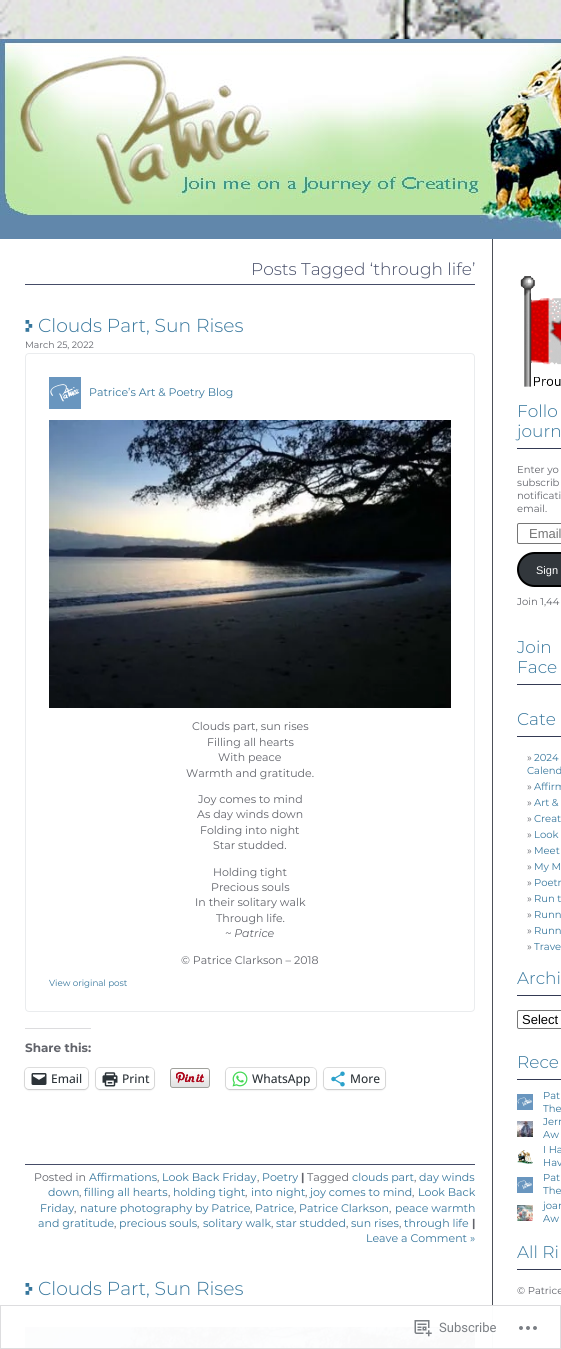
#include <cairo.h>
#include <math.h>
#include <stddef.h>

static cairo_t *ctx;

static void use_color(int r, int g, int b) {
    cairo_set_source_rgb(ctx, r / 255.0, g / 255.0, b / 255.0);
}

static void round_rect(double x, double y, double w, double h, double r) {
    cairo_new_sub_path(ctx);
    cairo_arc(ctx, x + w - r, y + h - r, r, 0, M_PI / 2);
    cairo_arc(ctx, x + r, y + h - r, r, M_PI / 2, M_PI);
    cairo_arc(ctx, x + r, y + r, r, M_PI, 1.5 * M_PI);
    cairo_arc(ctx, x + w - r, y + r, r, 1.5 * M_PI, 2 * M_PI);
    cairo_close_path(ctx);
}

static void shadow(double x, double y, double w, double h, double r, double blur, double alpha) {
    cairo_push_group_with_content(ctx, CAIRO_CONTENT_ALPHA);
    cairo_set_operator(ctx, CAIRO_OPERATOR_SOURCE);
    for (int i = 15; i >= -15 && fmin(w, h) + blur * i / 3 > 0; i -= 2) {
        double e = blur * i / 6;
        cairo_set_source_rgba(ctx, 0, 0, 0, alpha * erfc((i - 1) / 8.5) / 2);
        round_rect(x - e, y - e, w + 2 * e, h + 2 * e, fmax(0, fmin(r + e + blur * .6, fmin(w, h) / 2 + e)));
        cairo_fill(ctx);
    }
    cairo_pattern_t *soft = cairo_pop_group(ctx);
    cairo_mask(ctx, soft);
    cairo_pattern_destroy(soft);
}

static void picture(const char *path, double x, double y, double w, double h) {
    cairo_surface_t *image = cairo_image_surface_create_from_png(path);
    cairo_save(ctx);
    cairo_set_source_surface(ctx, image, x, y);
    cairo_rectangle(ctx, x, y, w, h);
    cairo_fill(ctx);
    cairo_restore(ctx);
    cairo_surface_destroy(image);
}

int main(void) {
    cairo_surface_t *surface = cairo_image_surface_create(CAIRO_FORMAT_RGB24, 561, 1349);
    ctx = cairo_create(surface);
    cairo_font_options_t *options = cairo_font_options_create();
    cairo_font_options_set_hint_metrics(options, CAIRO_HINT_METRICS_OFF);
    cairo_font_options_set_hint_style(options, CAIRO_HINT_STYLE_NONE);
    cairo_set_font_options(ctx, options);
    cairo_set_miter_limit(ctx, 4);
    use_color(255, 255, 255);
    cairo_paint(ctx);
    picture("img1.png", 0, 0, 561, 39);
    picture("img2.png", 0, 39, 561, 200);
    use_color(69, 76, 103);
    cairo_rectangle(ctx, 25, 284, 450, 1);
    cairo_fill(ctx);
    cairo_select_font_face(ctx, "Montserrat Light", CAIRO_FONT_SLANT_NORMAL, CAIRO_FONT_WEIGHT_NORMAL);
    cairo_set_font_size(ctx, 17);
    cairo_move_to(ctx, 251, 275);
    cairo_show_text(ctx, "Posts Tagged ‘through life’");
    picture("img3.png", 25, 320, 8, 12);
    cairo_set_font_size(ctx, 18.75);
    use_color(54, 118, 156);
    cairo_move_to(ctx, 38, 332);
    cairo_show_text(ctx, "Clouds Part, Sun Rises");
    cairo_select_font_face(ctx, "Montserrat", CAIRO_FONT_SLANT_NORMAL, CAIRO_FONT_WEIGHT_NORMAL);
    cairo_set_font_size(ctx, 9.25);
    use_color(97, 99, 106);
    cairo_move_to(ctx, 25, 348);
    cairo_show_text(ctx, "March 25, 2022");
    round_rect(25.5, 353.5, 449, 658, 3.5);
    cairo_set_source_rgba(ctx, 0.18, 0.267, 0.325, 0.1);
    cairo_set_line_width(ctx, 1);
    cairo_stroke(ctx);
    picture("img4.png", 49, 377, 32, 32);
    cairo_set_font_size(ctx, 11);
    use_color(54, 118, 156);
    cairo_move_to(ctx, 89, 396);
    cairo_show_text(ctx, "Patrice’s Art & Poetry Blog");
    picture("img5.png", 49, 420, 402, 288);
    use_color(97, 99, 106);
    cairo_move_to(ctx, 192, 730);
    cairo_show_text(ctx, "Clouds part, sun rises");
    cairo_move_to(ctx, 207, 746);
    cairo_show_text(ctx, "Filling all hearts");
    cairo_move_to(ctx, 218, 761);
    cairo_show_text(ctx, "With peace");
    cairo_move_to(ctx, 186, 777);
    cairo_show_text(ctx, "Warmth and gratitude.");
    cairo_move_to(ctx, 198, 803);
    cairo_show_text(ctx, "Joy comes to mind");
    cairo_move_to(ctx, 197, 818);
    cairo_show_text(ctx, "As day winds down");
    cairo_move_to(ctx, 200, 834);
    cairo_show_text(ctx, "Folding into night");
    cairo_move_to(ctx, 213, 849);
    cairo_show_text(ctx, "Star studded.");
    cairo_move_to(ctx, 213, 876);
    cairo_show_text(ctx, "Holding tight");
    cairo_move_to(ctx, 211, 891);
    cairo_show_text(ctx, "Precious souls");
    cairo_move_to(ctx, 195, 906);
    cairo_show_text(ctx, "In their solitary walk");
    cairo_move_to(ctx, 216, 922);
    cairo_show_text(ctx, "Through life.");
    cairo_select_font_face(ctx, "Montserrat", CAIRO_FONT_SLANT_ITALIC, CAIRO_FONT_WEIGHT_NORMAL);
    cairo_move_to(ctx, 225, 937);
    cairo_show_text(ctx, "~ Patrice");
    cairo_select_font_face(ctx, "Montserrat", CAIRO_FONT_SLANT_NORMAL, CAIRO_FONT_WEIGHT_NORMAL);
    cairo_move_to(ctx, 181, 964);
    cairo_show_text(ctx, "© Patrice Clarkson – 2018");
    cairo_set_font_size(ctx, 8.75);
    use_color(54, 118, 156);
    cairo_move_to(ctx, 49, 986);
    cairo_show_text(ctx, "View original post");
    use_color(220, 220, 222);
    cairo_rectangle(ctx, 25, 1028, 66, 1);
    cairo_fill(ctx);
    cairo_select_font_face(ctx, "Montserrat", CAIRO_FONT_SLANT_NORMAL, CAIRO_FONT_WEIGHT_BOLD);
    cairo_set_font_size(ctx, 12);
    use_color(97, 99, 106);
    cairo_move_to(ctx, 25, 1052);
    cairo_show_text(ctx, "Share this:");
    round_rect(24.5, 1067.5, 64, 22, 4.5);
    use_color(224, 224, 224);
    cairo_stroke(ctx);
    use_color(0, 0, 0);
    shadow(25, 1069, 63, 21, 4, 1, 0.12);
    use_color(255, 255, 255);
    round_rect(25, 1068, 63, 21, 4);
    cairo_fill(ctx);
    picture("img6.png", 31, 1073, 16, 12);
    cairo_select_font_face(ctx, "Open Sans Medium", CAIRO_FONT_SLANT_NORMAL, CAIRO_FONT_WEIGHT_NORMAL);
    use_color(44, 51, 56);
    cairo_move_to(ctx, 51, 1083);
    cairo_show_text(ctx, "Email");
    round_rect(95.5, 1067.5, 59, 22, 4.5);
    use_color(224, 224, 224);
    cairo_stroke(ctx);
    use_color(0, 0, 0);
    shadow(96, 1069, 58, 21, 4, 1, 0.12);
    use_color(255, 255, 255);
    round_rect(96, 1068, 58, 21, 4);
    cairo_fill(ctx);
    picture("img7.png", 102, 1072, 16, 15);
    use_color(44, 51, 56);
    cairo_move_to(ctx, 122, 1083);
    cairo_show_text(ctx, "Print");
    picture("img8.png", 170, 1068, 40, 20);
    round_rect(225.5, 1067.5, 91, 22, 4.5);
    use_color(224, 224, 224);
    cairo_stroke(ctx);
    use_color(0, 0, 0);
    shadow(226, 1069, 90, 21, 4, 1, 0.12);
    use_color(255, 255, 255);
    round_rect(226, 1068, 90, 21, 4);
    cairo_fill(ctx);
    picture("img9.png", 232, 1071, 16, 16);
    use_color(44, 51, 56);
    cairo_move_to(ctx, 252, 1083);
    cairo_show_text(ctx, "WhatsApp");
    round_rect(323.5, 1067.5, 62, 22, 4.5);
    use_color(224, 224, 224);
    cairo_stroke(ctx);
    use_color(0, 0, 0);
    shadow(324, 1069, 61, 21, 4, 1, 0.12);
    use_color(255, 255, 255);
    round_rect(324, 1068, 61, 21, 4);
    cairo_fill(ctx);
    picture("img10.png", 331, 1071, 14, 16);
    use_color(44, 51, 56);
    cairo_move_to(ctx, 350, 1083);
    cairo_show_text(ctx, "More");
    use_color(69, 76, 103);
    cairo_rectangle(ctx, 25, 1164, 450, 1);
    cairo_fill(ctx);
    cairo_select_font_face(ctx, "Montserrat", CAIRO_FONT_SLANT_NORMAL, CAIRO_FONT_WEIGHT_NORMAL);
    cairo_set_font_size(ctx, 11);
    use_color(97, 99, 106);
    cairo_move_to(ctx, 34, 1181);
    cairo_show_text(ctx, "Posted in");
    use_color(54, 118, 156);
    cairo_move_to(ctx, 89, 1181);
    cairo_show_text(ctx, "Affirmations");
    use_color(97, 99, 106);
    cairo_move_to(ctx, 157, 1181);
    cairo_show_text(ctx, ",");
    use_color(54, 118, 156);
    cairo_move_to(ctx, 162, 1181);
    cairo_show_text(ctx, "Look Back Friday");
    use_color(97, 99, 106);
    cairo_move_to(ctx, 257, 1181);
    cairo_show_text(ctx, ",");
    use_color(54, 118, 156);
    cairo_move_to(ctx, 262, 1181);
    cairo_show_text(ctx, "Poetry");
    cairo_select_font_face(ctx, "Montserrat", CAIRO_FONT_SLANT_NORMAL, CAIRO_FONT_WEIGHT_BOLD);
    use_color(97, 99, 106);
    cairo_move_to(ctx, 301, 1181);
    cairo_show_text(ctx, "|");
    cairo_select_font_face(ctx, "Montserrat", CAIRO_FONT_SLANT_NORMAL, CAIRO_FONT_WEIGHT_NORMAL);
    cairo_move_to(ctx, 307, 1181);
    cairo_show_text(ctx, "Tagged");
    use_color(54, 118, 156);
    cairo_move_to(ctx, 352, 1181);
    cairo_show_text(ctx, "clouds part");
    use_color(97, 99, 106);
    cairo_move_to(ctx, 414, 1181);
    cairo_show_text(ctx, ",");
    use_color(54, 118, 156);
    cairo_move_to(ctx, 419, 1181);
    cairo_show_text(ctx, "day winds");
    cairo_move_to(ctx, 48, 1196);
    cairo_show_text(ctx, "down");
    use_color(97, 99, 106);
    cairo_move_to(ctx, 79, 1196);
    cairo_show_text(ctx, ",");
    use_color(54, 118, 156);
    cairo_move_to(ctx, 84, 1196);
    cairo_show_text(ctx, "filling all hearts");
    use_color(97, 99, 106);
    cairo_move_to(ctx, 168, 1196);
    cairo_show_text(ctx, ",");
    use_color(54, 118, 156);
    cairo_move_to(ctx, 173, 1196);
    cairo_show_text(ctx, "holding tight");
    use_color(97, 99, 106);
    cairo_move_to(ctx, 245, 1196);
    cairo_show_text(ctx, ",");
    use_color(54, 118, 156);
    cairo_move_to(ctx, 251, 1196);
    cairo_show_text(ctx, "into night");
    use_color(97, 99, 106);
    cairo_move_to(ctx, 305, 1196);
    cairo_show_text(ctx, ",");
    use_color(54, 118, 156);
    cairo_move_to(ctx, 310, 1196);
    cairo_show_text(ctx, "joy comes to mind");
    use_color(97, 99, 106);
    cairo_move_to(ctx, 412, 1196);
    cairo_show_text(ctx, ",");
    use_color(54, 118, 156);
    cairo_move_to(ctx, 418, 1196);
    cairo_show_text(ctx, "Look Back");
    cairo_move_to(ctx, 40, 1212);
    cairo_show_text(ctx, "Friday");
    use_color(97, 99, 106);
    cairo_move_to(ctx, 74, 1212);
    cairo_show_text(ctx, ",");
    use_color(54, 118, 156);
    cairo_move_to(ctx, 80, 1212);
    cairo_show_text(ctx, "nature photography by Patrice");
    use_color(97, 99, 106);
    cairo_move_to(ctx, 250, 1212);
    cairo_show_text(ctx, ",");
    use_color(54, 118, 156);
    cairo_move_to(ctx, 255, 1212);
    cairo_show_text(ctx, "Patrice");
    use_color(97, 99, 106);
    cairo_move_to(ctx, 294, 1212);
    cairo_show_text(ctx, ",");
    use_color(54, 118, 156);
    cairo_move_to(ctx, 299, 1212);
    cairo_show_text(ctx, "Patrice Clarkson");
    use_color(97, 99, 106);
    cairo_move_to(ctx, 389, 1212);
    cairo_show_text(ctx, ",");
    use_color(54, 118, 156);
    cairo_move_to(ctx, 395, 1212);
    cairo_show_text(ctx, "peace warmth");
    cairo_move_to(ctx, 38, 1227);
    cairo_show_text(ctx, "and gratitude");
    use_color(97, 99, 106);
    cairo_move_to(ctx, 114, 1227);
    cairo_show_text(ctx, ",");
    use_color(54, 118, 156);
    cairo_move_to(ctx, 119, 1227);
    cairo_show_text(ctx, "precious souls");
    use_color(97, 99, 106);
    cairo_move_to(ctx, 197, 1227);
    cairo_show_text(ctx, ",");
    use_color(54, 118, 156);
    cairo_move_to(ctx, 203, 1227);
    cairo_show_text(ctx, "solitary walk");
    use_color(97, 99, 106);
    cairo_move_to(ctx, 271, 1227);
    cairo_show_text(ctx, ",");
    use_color(54, 118, 156);
    cairo_move_to(ctx, 276, 1227);
    cairo_show_text(ctx, "star studded");
    use_color(97, 99, 106);
    cairo_move_to(ctx, 346, 1227);
    cairo_show_text(ctx, ",");
    use_color(54, 118, 156);
    cairo_move_to(ctx, 351, 1227);
    cairo_show_text(ctx, "sun rises");
    use_color(97, 99, 106);
    cairo_move_to(ctx, 399, 1227);
    cairo_show_text(ctx, ",");
    use_color(54, 118, 156);
    cairo_move_to(ctx, 404, 1227);
    cairo_show_text(ctx, "through life");
    cairo_select_font_face(ctx, "Montserrat", CAIRO_FONT_SLANT_NORMAL, CAIRO_FONT_WEIGHT_BOLD);
    use_color(97, 99, 106);
    cairo_move_to(ctx, 472, 1227);
    cairo_show_text(ctx, "|");
    cairo_select_font_face(ctx, "Montserrat", CAIRO_FONT_SLANT_NORMAL, CAIRO_FONT_WEIGHT_NORMAL);
    use_color(54, 118, 156);
    cairo_move_to(ctx, 366, 1242);
    cairo_show_text(ctx, "Leave a Comment »");
    picture("img3.png", 25, 1283, 8, 12);
    cairo_select_font_face(ctx, "Montserrat Light", CAIRO_FONT_SLANT_NORMAL, CAIRO_FONT_WEIGHT_NORMAL);
    cairo_set_font_size(ctx, 18.75);
    cairo_move_to(ctx, 38, 1295);
    cairo_show_text(ctx, "Clouds Part, Sun Rises");
    picture("img11.png", 25, 1327, 450, 22);
    use_color(76, 79, 88);
    cairo_rectangle(ctx, 492, 239, 1, 1110);
    cairo_fill(ctx);
    picture("img12.png", 520, 276, 41, 111);
    use_color(52, 58, 84);
    cairo_rectangle(ctx, 517, 448, 44, 1);
    cairo_fill(ctx);
    cairo_set_font_size(ctx, 17);
    use_color(54, 118, 156);
    cairo_move_to(ctx, 517, 417);
    cairo_show_text(ctx, "Follo");
    cairo_move_to(ctx, 517, 437);
    cairo_show_text(ctx, "journ");
    cairo_select_font_face(ctx, "Montserrat", CAIRO_FONT_SLANT_NORMAL, CAIRO_FONT_WEIGHT_NORMAL);
    cairo_set_font_size(ctx, 10);
    use_color(97, 99, 106);
    cairo_move_to(ctx, 517, 473);
    cairo_show_text(ctx, "Enter yo");
    cairo_move_to(ctx, 517, 486);
    cairo_show_text(ctx, "subscrib");
    cairo_move_to(ctx, 517, 499);
    cairo_show_text(ctx, "notificati");
    cairo_move_to(ctx, 517, 512);
    cairo_show_text(ctx, "email.");
    round_rect(517.5, 523.5, 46, 20, 1.5);
    use_color(118, 118, 118);
    cairo_stroke(ctx);
    cairo_select_font_face(ctx, "Liberation Sans", CAIRO_FONT_SLANT_NORMAL, CAIRO_FONT_WEIGHT_NORMAL);
    cairo_set_font_size(ctx, 13);
    use_color(117, 117, 117);
    cairo_move_to(ctx, 529, 538);
    cairo_show_text(ctx, "Email");
    use_color(50, 55, 60);
    round_rect(518, 553, 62, 33, 16.5);
    cairo_fill_preserve(ctx);
    use_color(0, 0, 0);
    cairo_set_line_width(ctx, 2);
    cairo_stroke(ctx);
    cairo_set_font_size(ctx, 11);
    use_color(255, 255, 255);
    cairo_move_to(ctx, 536, 574);
    cairo_show_text(ctx, "Sign");
    cairo_select_font_face(ctx, "Montserrat", CAIRO_FONT_SLANT_NORMAL, CAIRO_FONT_WEIGHT_NORMAL);
    cairo_set_font_size(ctx, 10);
    use_color(97, 99, 106);
    cairo_move_to(ctx, 517, 605);
    cairo_show_text(ctx, "Join 1,44");
    use_color(52, 58, 84);
    cairo_rectangle(ctx, 517, 684, 44, 1);
    cairo_fill(ctx);
    cairo_select_font_face(ctx, "Montserrat Light", CAIRO_FONT_SLANT_NORMAL, CAIRO_FONT_WEIGHT_NORMAL);
    cairo_set_font_size(ctx, 17);
    use_color(54, 118, 156);
    cairo_move_to(ctx, 517, 653);
    cairo_show_text(ctx, "Join");
    cairo_move_to(ctx, 517, 673);
    cairo_show_text(ctx, "Face");
    use_color(52, 58, 84);
    cairo_rectangle(ctx, 517, 736, 44, 1);
    cairo_fill(ctx);
    use_color(54, 118, 156);
    cairo_move_to(ctx, 517, 725);
    cairo_show_text(ctx, "Cate");
    cairo_select_font_face(ctx, "Montserrat", CAIRO_FONT_SLANT_NORMAL, CAIRO_FONT_WEIGHT_NORMAL);
    cairo_set_font_size(ctx, 10);
    use_color(97, 99, 106);
    cairo_move_to(ctx, 527, 761);
    cairo_show_text(ctx, "»");
    use_color(54, 118, 156);
    cairo_move_to(ctx, 534, 761);
    cairo_show_text(ctx, "2024");
    cairo_move_to(ctx, 527, 774);
    cairo_show_text(ctx, "Calend");
    use_color(97, 99, 106);
    cairo_move_to(ctx, 527, 790);
    cairo_show_text(ctx, "»");
    use_color(54, 118, 156);
    cairo_move_to(ctx, 534, 790);
    cairo_show_text(ctx, "Affirm");
    use_color(97, 99, 106);
    cairo_move_to(ctx, 527, 806);
    cairo_show_text(ctx, "»");
    use_color(54, 118, 156);
    cairo_move_to(ctx, 534, 806);
    cairo_show_text(ctx, "Art &");
    use_color(97, 99, 106);
    cairo_move_to(ctx, 527, 822);
    cairo_show_text(ctx, "»");
    use_color(54, 118, 156);
    cairo_move_to(ctx, 534, 822);
    cairo_show_text(ctx, "Creat");
    use_color(97, 99, 106);
    cairo_move_to(ctx, 527, 838);
    cairo_show_text(ctx, "»");
    use_color(54, 118, 156);
    cairo_move_to(ctx, 534, 838);
    cairo_show_text(ctx, "Look");
    use_color(97, 99, 106);
    cairo_move_to(ctx, 527, 854);
    cairo_show_text(ctx, "»");
    use_color(54, 118, 156);
    cairo_move_to(ctx, 534, 854);
    cairo_show_text(ctx, "Meet");
    use_color(97, 99, 106);
    cairo_move_to(ctx, 527, 870);
    cairo_show_text(ctx, "»");
    use_color(54, 118, 156);
    cairo_move_to(ctx, 534, 870);
    cairo_show_text(ctx, "My M");
    use_color(97, 99, 106);
    cairo_move_to(ctx, 527, 886);
    cairo_show_text(ctx, "»");
    use_color(54, 118, 156);
    cairo_move_to(ctx, 534, 886);
    cairo_show_text(ctx, "Poetr");
    use_color(97, 99, 106);
    cairo_move_to(ctx, 527, 902);
    cairo_show_text(ctx, "»");
    use_color(54, 118, 156);
    cairo_move_to(ctx, 534, 902);
    cairo_show_text(ctx, "Run t");
    use_color(97, 99, 106);
    cairo_move_to(ctx, 527, 918);
    cairo_show_text(ctx, "»");
    use_color(54, 118, 156);
    cairo_move_to(ctx, 534, 918);
    cairo_show_text(ctx, "Runn");
    use_color(97, 99, 106);
    cairo_move_to(ctx, 527, 934);
    cairo_show_text(ctx, "»");
    use_color(54, 118, 156);
    cairo_move_to(ctx, 534, 934);
    cairo_show_text(ctx, "Runn");
    use_color(97, 99, 106);
    cairo_move_to(ctx, 527, 950);
    cairo_show_text(ctx, "»");
    use_color(54, 118, 156);
    cairo_move_to(ctx, 534, 950);
    cairo_show_text(ctx, "Trave");
    use_color(52, 58, 84);
    cairo_rectangle(ctx, 517, 995, 44, 1);
    cairo_fill(ctx);
    cairo_select_font_face(ctx, "Montserrat Light", CAIRO_FONT_SLANT_NORMAL, CAIRO_FONT_WEIGHT_NORMAL);
    cairo_set_font_size(ctx, 17);
    use_color(54, 118, 156);
    cairo_move_to(ctx, 517, 984);
    cairo_show_text(ctx, "Archi");
    round_rect(517.5, 1010.5, 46, 18, 1.5);
    use_color(118, 118, 118);
    cairo_set_line_width(ctx, 1);
    cairo_stroke(ctx);
    cairo_select_font_face(ctx, "Liberation Sans", CAIRO_FONT_SLANT_NORMAL, CAIRO_FONT_WEIGHT_NORMAL);
    cairo_set_font_size(ctx, 13);
    use_color(0, 0, 0);
    cairo_move_to(ctx, 522, 1024);
    cairo_show_text(ctx, "Select");
    use_color(52, 58, 84);
    cairo_rectangle(ctx, 517, 1079, 44, 1);
    cairo_fill(ctx);
    cairo_select_font_face(ctx, "Montserrat Light", CAIRO_FONT_SLANT_NORMAL, CAIRO_FONT_WEIGHT_NORMAL);
    cairo_set_font_size(ctx, 17);
    use_color(54, 118, 156);
    cairo_move_to(ctx, 517, 1068);
    cairo_show_text(ctx, "Rece");
    picture("img13.png", 517, 1094, 16, 16);
    cairo_select_font_face(ctx, "Montserrat", CAIRO_FONT_SLANT_NORMAL, CAIRO_FONT_WEIGHT_NORMAL);
    cairo_set_font_size(ctx, 10);
    cairo_move_to(ctx, 543, 1099);
    cairo_show_text(ctx, "Pat");
    cairo_move_to(ctx, 543, 1112);
    cairo_show_text(ctx, "The");
    picture("img14.png", 517, 1121, 16, 16);
    cairo_move_to(ctx, 543, 1125);
    cairo_show_text(ctx, "Jerr");
    cairo_move_to(ctx, 543, 1138);
    cairo_show_text(ctx, "Aw");
    picture("img15.png", 517, 1150, 16, 14);
    cairo_move_to(ctx, 543, 1153);
    cairo_show_text(ctx, "I Ha");
    cairo_move_to(ctx, 543, 1166);
    cairo_show_text(ctx, "Hav");
    picture("img13.png", 517, 1177, 16, 16);
    cairo_move_to(ctx, 543, 1181);
    cairo_show_text(ctx, "Pat");
    cairo_move_to(ctx, 543, 1194);
    cairo_show_text(ctx, "The");
    picture("img16.png", 517, 1205, 16, 16);
    cairo_move_to(ctx, 543, 1209);
    cairo_show_text(ctx, "joan");
    cairo_move_to(ctx, 543, 1222);
    cairo_show_text(ctx, "Aw");
    use_color(52, 58, 84);
    cairo_rectangle(ctx, 517, 1269, 44, 1);
    cairo_fill(ctx);
    cairo_select_font_face(ctx, "Montserrat Light", CAIRO_FONT_SLANT_NORMAL, CAIRO_FONT_WEIGHT_NORMAL);
    cairo_set_font_size(ctx, 17);
    use_color(54, 118, 156);
    cairo_move_to(ctx, 517, 1258);
    cairo_show_text(ctx, "All Ri");
    cairo_select_font_face(ctx, "Montserrat", CAIRO_FONT_SLANT_NORMAL, CAIRO_FONT_WEIGHT_NORMAL);
    cairo_set_font_size(ctx, 10);
    use_color(97, 99, 106);
    cairo_move_to(ctx, 517, 1294);
    cairo_show_text(ctx, "© Patrice");
    cairo_set_source_rgba(ctx, 1, 1, 1, 0.98);
    cairo_rectangle(ctx, 25, 1305, 468, 44);
    cairo_fill(ctx);
    cairo_rectangle(ctx, 0.5, 1305.5, 560, 43);
    cairo_set_source_rgba(ctx, 0.863, 0.863, 0.871, 0.98);
    cairo_stroke(ctx);
    picture("img17.png", 414, 1320, 18, 17);
    cairo_select_font_face(ctx, "Roboto", CAIRO_FONT_SLANT_NORMAL, CAIRO_FONT_WEIGHT_NORMAL);
    cairo_set_font_size(ctx, 13);
    use_color(123, 127, 132);
    cairo_move_to(ctx, 439, 1332);
    cairo_show_text(ctx, "Subscribe");
    picture("img18.png", 519, 1326, 18, 4);
    cairo_surface_write_to_png(surface, "result.png");
    cairo_font_options_destroy(options);
    cairo_destroy(ctx);
    cairo_surface_destroy(surface);
    return 0;
}
